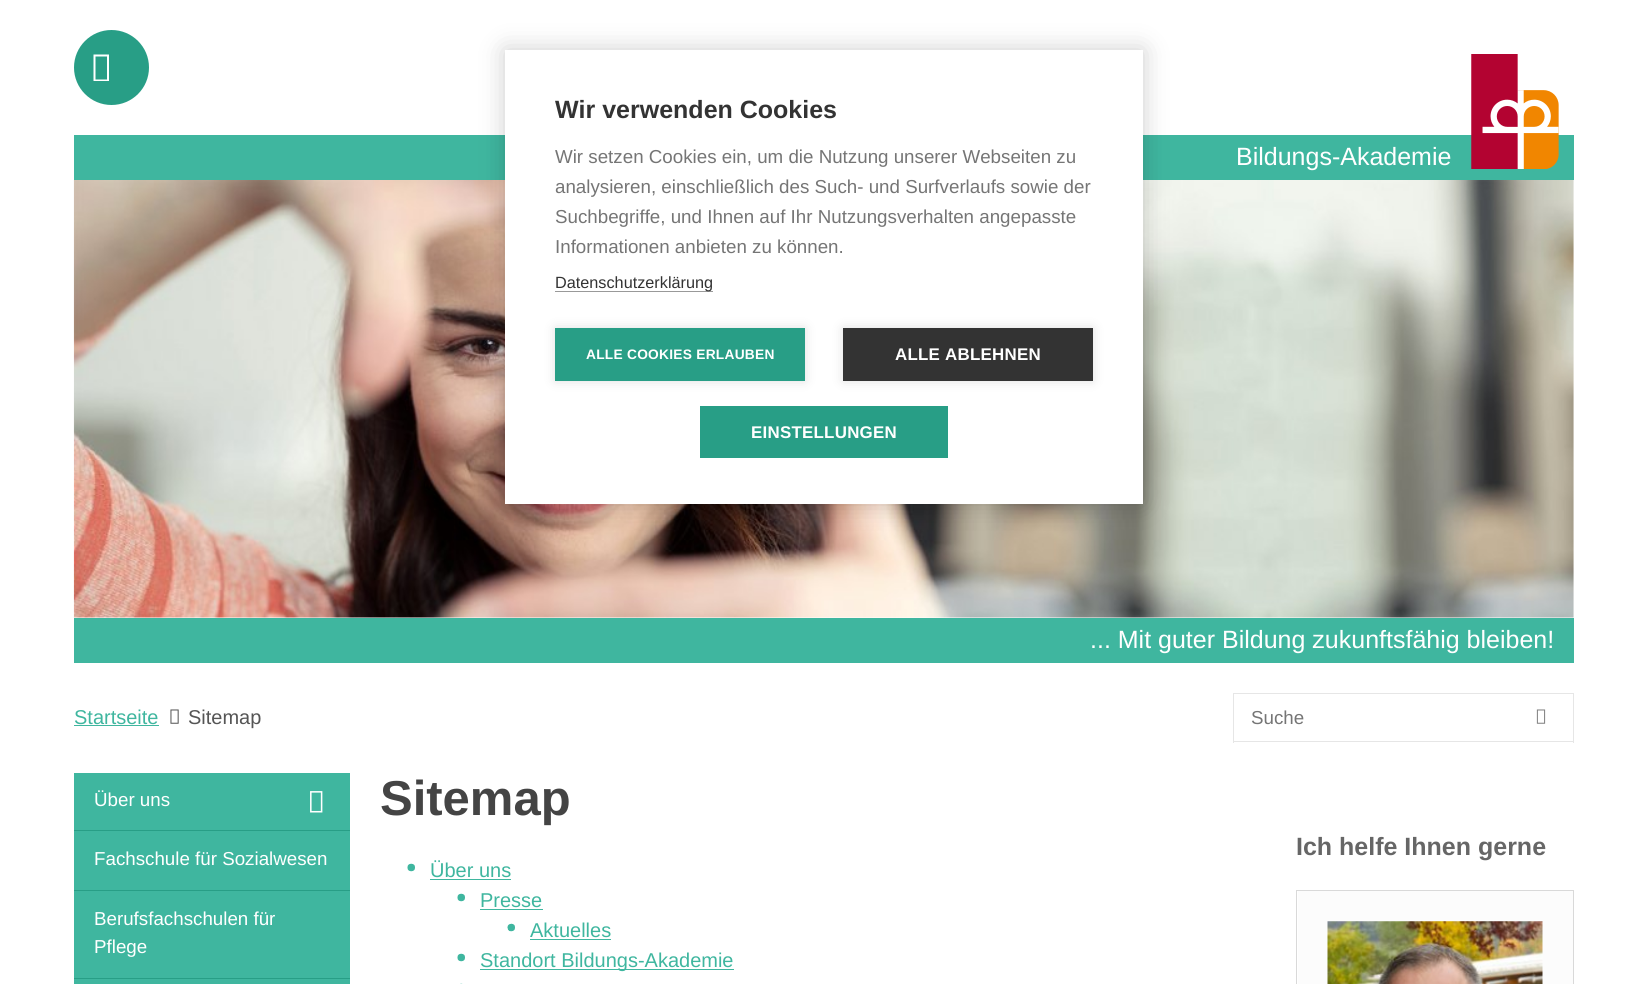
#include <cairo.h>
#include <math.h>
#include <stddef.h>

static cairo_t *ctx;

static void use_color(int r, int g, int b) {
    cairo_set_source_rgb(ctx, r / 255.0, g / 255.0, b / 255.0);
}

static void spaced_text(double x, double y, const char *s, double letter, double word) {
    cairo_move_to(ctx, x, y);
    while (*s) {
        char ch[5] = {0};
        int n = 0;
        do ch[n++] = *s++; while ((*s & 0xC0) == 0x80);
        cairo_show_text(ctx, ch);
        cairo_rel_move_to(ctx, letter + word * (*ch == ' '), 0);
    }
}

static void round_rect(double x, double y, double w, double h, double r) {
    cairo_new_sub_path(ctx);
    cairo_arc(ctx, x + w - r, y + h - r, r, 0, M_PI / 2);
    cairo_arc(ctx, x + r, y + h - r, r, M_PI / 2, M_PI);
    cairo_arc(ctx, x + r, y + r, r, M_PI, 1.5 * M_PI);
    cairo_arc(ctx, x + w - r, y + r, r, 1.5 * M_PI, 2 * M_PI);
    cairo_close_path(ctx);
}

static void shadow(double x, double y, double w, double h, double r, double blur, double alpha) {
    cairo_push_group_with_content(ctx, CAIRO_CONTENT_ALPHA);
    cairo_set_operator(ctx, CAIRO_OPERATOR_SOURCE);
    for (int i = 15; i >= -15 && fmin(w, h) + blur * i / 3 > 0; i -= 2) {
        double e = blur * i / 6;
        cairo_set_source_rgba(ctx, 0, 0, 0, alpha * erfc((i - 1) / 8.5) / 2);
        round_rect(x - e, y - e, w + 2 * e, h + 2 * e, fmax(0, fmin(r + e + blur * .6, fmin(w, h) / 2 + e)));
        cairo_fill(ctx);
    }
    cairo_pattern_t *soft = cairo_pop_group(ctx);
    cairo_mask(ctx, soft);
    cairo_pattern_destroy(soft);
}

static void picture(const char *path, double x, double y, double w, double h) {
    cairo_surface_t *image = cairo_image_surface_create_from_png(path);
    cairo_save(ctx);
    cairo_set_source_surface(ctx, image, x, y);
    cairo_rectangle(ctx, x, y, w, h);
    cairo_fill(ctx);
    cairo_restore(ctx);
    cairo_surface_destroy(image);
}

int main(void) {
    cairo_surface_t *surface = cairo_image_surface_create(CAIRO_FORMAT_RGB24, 1647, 984);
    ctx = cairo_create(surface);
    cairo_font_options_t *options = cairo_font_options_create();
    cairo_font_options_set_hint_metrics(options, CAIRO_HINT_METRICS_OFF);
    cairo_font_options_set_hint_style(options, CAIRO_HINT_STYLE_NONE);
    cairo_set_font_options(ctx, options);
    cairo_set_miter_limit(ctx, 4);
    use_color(255, 255, 255);
    cairo_paint(ctx);
    use_color(63, 182, 159);
    cairo_rectangle(ctx, 74, 135, 1500, 45);
    cairo_fill(ctx);
    picture("img2.png", 73, 180, 1501, 438);
    use_color(0, 0, 0);
    shadow(505, 50, 638, 454, 0, 12.5, 0.2);
    use_color(255, 255, 255);
    cairo_rectangle(ctx, 505, 50, 638, 454);
    cairo_fill(ctx);
    cairo_select_font_face(ctx, "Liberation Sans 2", CAIRO_FONT_SLANT_NORMAL, CAIRO_FONT_WEIGHT_BOLD);
    cairo_set_font_size(ctx, 25);
    use_color(51, 51, 51);
    cairo_move_to(ctx, 555, 118);
    cairo_show_text(ctx, "Wir verwenden Cookies");
    cairo_select_font_face(ctx, "Liberation Sans 2", CAIRO_FONT_SLANT_NORMAL, CAIRO_FONT_WEIGHT_NORMAL);
    cairo_set_font_size(ctx, 18.75);
    use_color(117, 117, 117);
    cairo_move_to(ctx, 555, 163);
    cairo_show_text(ctx, "Wir setzen Cookies ein, um die Nutzung unserer Webseiten zu");
    cairo_move_to(ctx, 555, 193);
    cairo_show_text(ctx, "analysieren, einschließlich des Such- und Surfverlaufs sowie der");
    cairo_move_to(ctx, 555, 223);
    cairo_show_text(ctx, "Suchbegriffe, und Ihnen auf Ihr Nutzungsverhalten angepasste");
    cairo_move_to(ctx, 555, 253);
    cairo_show_text(ctx, "Informationen anbieten zu können.");
    use_color(153, 153, 153);
    cairo_rectangle(ctx, 555, 291, 158, 1);
    cairo_fill(ctx);
    cairo_set_font_size(ctx, 16.25);
    use_color(51, 51, 51);
    cairo_move_to(ctx, 555, 288);
    cairo_show_text(ctx, "Datenschutzerklärung");
    use_color(0, 0, 0);
    shadow(555, 328, 250, 53, 0, 6, 0.12);
    use_color(40, 158, 134);
    cairo_rectangle(ctx, 555, 328, 250, 53);
    cairo_fill(ctx);
    cairo_select_font_face(ctx, "Liberation Sans 2", CAIRO_FONT_SLANT_NORMAL, CAIRO_FONT_WEIGHT_BOLD);
    cairo_set_font_size(ctx, 13.75);
    use_color(255, 255, 255);
    spaced_text(586, 359, "ALLE COOKIES ERLAUBEN", 0.25, 0);
    use_color(0, 0, 0);
    shadow(843, 328, 250, 53, 0, 6, 0.12);
    use_color(51, 51, 51);
    cairo_rectangle(ctx, 843, 328, 250, 53);
    cairo_fill(ctx);
    cairo_set_font_size(ctx, 16.9);
    use_color(255, 255, 255);
    spaced_text(895, 360, "ALLE ABLEHNEN", 0.25, 0);
    use_color(40, 158, 134);
    cairo_rectangle(ctx, 700, 406, 248, 52);
    cairo_fill(ctx);
    use_color(255, 255, 255);
    spaced_text(751, 438, "EINSTELLUNGEN", 0.25, 0);
    use_color(40, 158, 134);
    cairo_new_path(ctx);
    cairo_arc(ctx, 111.5, 67.5, 37.5, 0, 2 * M_PI);
    cairo_fill(ctx);
    use_color(255, 255, 255);
    cairo_new_path(ctx);
    cairo_move_to(ctx, 93.5, 81);
    cairo_line_to(ctx, 93.5, 54.5);
    cairo_line_to(ctx, 109, 54.5);
    cairo_line_to(ctx, 109, 81);
    cairo_close_path(ctx);
    cairo_move_to(ctx, 95.5, 79.5);
    cairo_line_to(ctx, 107, 79.5);
    cairo_line_to(ctx, 107, 56.5);
    cairo_line_to(ctx, 95.5, 56.5);
    cairo_close_path(ctx);
    cairo_fill(ctx);
    cairo_select_font_face(ctx, "Liberation Sans", CAIRO_FONT_SLANT_NORMAL, CAIRO_FONT_WEIGHT_NORMAL);
    cairo_set_font_size(ctx, 25);
    cairo_move_to(ctx, 1236, 165);
    cairo_show_text(ctx, "Bildungs-Akademie");
    picture("img1.png", 1471, 54, 88, 115);
    use_color(63, 182, 159);
    cairo_rectangle(ctx, 74, 618, 1500, 45);
    cairo_fill(ctx);
    use_color(255, 255, 255);
    cairo_move_to(ctx, 1090, 648);
    cairo_show_text(ctx, "... Mit guter Bildung zukunftsfähig bleiben!");
    cairo_set_font_size(ctx, 20);
    use_color(63, 182, 159);
    cairo_move_to(ctx, 74, 724);
    cairo_show_text(ctx, "Startseite");
    cairo_rectangle(ctx, 74, 725, 85, 1);
    cairo_fill(ctx);
    picture("img3.png", 170, 709, 9, 15);
    use_color(85, 85, 85);
    cairo_move_to(ctx, 188, 724);
    cairo_show_text(ctx, "Sitemap");
    use_color(230, 230, 230);
    cairo_rectangle(ctx, 1233, 693, 341, 1);
    cairo_fill(ctx);
    cairo_rectangle(ctx, 1233, 741, 285, 1);
    cairo_fill(ctx);
    cairo_rectangle(ctx, 1233, 693, 1, 50);
    cairo_fill(ctx);
    cairo_select_font_face(ctx, "Liberation Sans 2", CAIRO_FONT_SLANT_NORMAL, CAIRO_FONT_WEIGHT_NORMAL);
    cairo_set_font_size(ctx, 18.75);
    use_color(117, 117, 117);
    cairo_move_to(ctx, 1251, 724);
    cairo_show_text(ctx, "Suche");
    use_color(230, 230, 230);
    cairo_rectangle(ctx, 1573, 693, 1, 50);
    cairo_fill(ctx);
    cairo_rectangle(ctx, 1518, 741, 56, 1);
    cairo_fill(ctx);
    picture("img4.png", 1536, 709, 10, 15);
    use_color(63, 182, 159);
    cairo_rectangle(ctx, 74, 773, 276, 57);
    cairo_fill(ctx);
    use_color(40, 158, 134);
    cairo_rectangle(ctx, 74, 830, 276, 1);
    cairo_fill(ctx);
    cairo_select_font_face(ctx, "Liberation Sans", CAIRO_FONT_SLANT_NORMAL, CAIRO_FONT_WEIGHT_NORMAL);
    use_color(255, 255, 255);
    cairo_move_to(ctx, 94, 806);
    cairo_show_text(ctx, "Über uns");
    picture("img5.png", 310, 791, 13, 22);
    use_color(63, 182, 159);
    cairo_rectangle(ctx, 74, 831, 276, 59);
    cairo_fill(ctx);
    use_color(40, 158, 134);
    cairo_rectangle(ctx, 74, 890, 276, 1);
    cairo_fill(ctx);
    use_color(255, 255, 255);
    cairo_move_to(ctx, 94, 865);
    cairo_show_text(ctx, "Fachschule für Sozialwesen");
    use_color(63, 182, 159);
    cairo_rectangle(ctx, 74, 891, 276, 87);
    cairo_fill(ctx);
    use_color(40, 158, 134);
    cairo_rectangle(ctx, 74, 978, 276, 1);
    cairo_fill(ctx);
    use_color(255, 255, 255);
    cairo_move_to(ctx, 94, 925);
    cairo_show_text(ctx, "Berufsfachschulen für");
    cairo_move_to(ctx, 94, 953);
    cairo_show_text(ctx, "Pflege");
    use_color(63, 182, 159);
    cairo_rectangle(ctx, 74, 979, 276, 5);
    cairo_fill(ctx);
    cairo_select_font_face(ctx, "Liberation Sans", CAIRO_FONT_SLANT_NORMAL, CAIRO_FONT_WEIGHT_BOLD);
    cairo_set_font_size(ctx, 49);
    use_color(68, 68, 68);
    cairo_move_to(ctx, 380, 815);
    cairo_show_text(ctx, "Sitemap");
    picture("img6.png", 407, 863, 8, 9);
    cairo_select_font_face(ctx, "Liberation Sans", CAIRO_FONT_SLANT_NORMAL, CAIRO_FONT_WEIGHT_NORMAL);
    cairo_set_font_size(ctx, 20);
    use_color(63, 182, 159);
    cairo_move_to(ctx, 430, 877);
    cairo_show_text(ctx, "Über uns");
    cairo_rectangle(ctx, 430, 879, 81, 1);
    cairo_fill(ctx);
    picture("img6.png", 457, 893, 8, 9);
    cairo_move_to(ctx, 480, 907);
    cairo_show_text(ctx, "Presse");
    cairo_rectangle(ctx, 480, 909, 63, 1);
    cairo_fill(ctx);
    picture("img7.png", 507, 923, 8, 9);
    cairo_move_to(ctx, 530, 937);
    cairo_show_text(ctx, "Aktuelles");
    cairo_rectangle(ctx, 530, 939, 81, 1);
    cairo_fill(ctx);
    picture("img6.png", 457, 953, 8, 9);
    cairo_rectangle(ctx, 480, 969, 254, 1);
    cairo_fill(ctx);
    cairo_move_to(ctx, 480, 967);
    cairo_show_text(ctx, "Standort Bildungs-Akademie");
    picture("img8.png", 460, 983, 3, 1);
    cairo_select_font_face(ctx, "Liberation Sans", CAIRO_FONT_SLANT_NORMAL, CAIRO_FONT_WEIGHT_BOLD);
    cairo_set_font_size(ctx, 25);
    use_color(102, 102, 102);
    cairo_move_to(ctx, 1296, 855);
    cairo_show_text(ctx, "Ich helfe Ihnen gerne");
    use_color(252, 252, 252);
    cairo_rectangle(ctx, 1298, 891, 275, 93);
    cairo_fill(ctx);
    use_color(217, 217, 217);
    cairo_rectangle(ctx, 1296, 890, 278, 1);
    cairo_fill(ctx);
    cairo_rectangle(ctx, 1573, 890, 1, 94);
    cairo_fill(ctx);
    cairo_rectangle(ctx, 1296, 890, 1, 94);
    cairo_fill(ctx);
    picture("img9.png", 1327, 921, 216, 63);
    cairo_surface_write_to_png(surface, "result.png");
    cairo_font_options_destroy(options);
    cairo_destroy(ctx);
    cairo_surface_destroy(surface);
    return 0;
}
